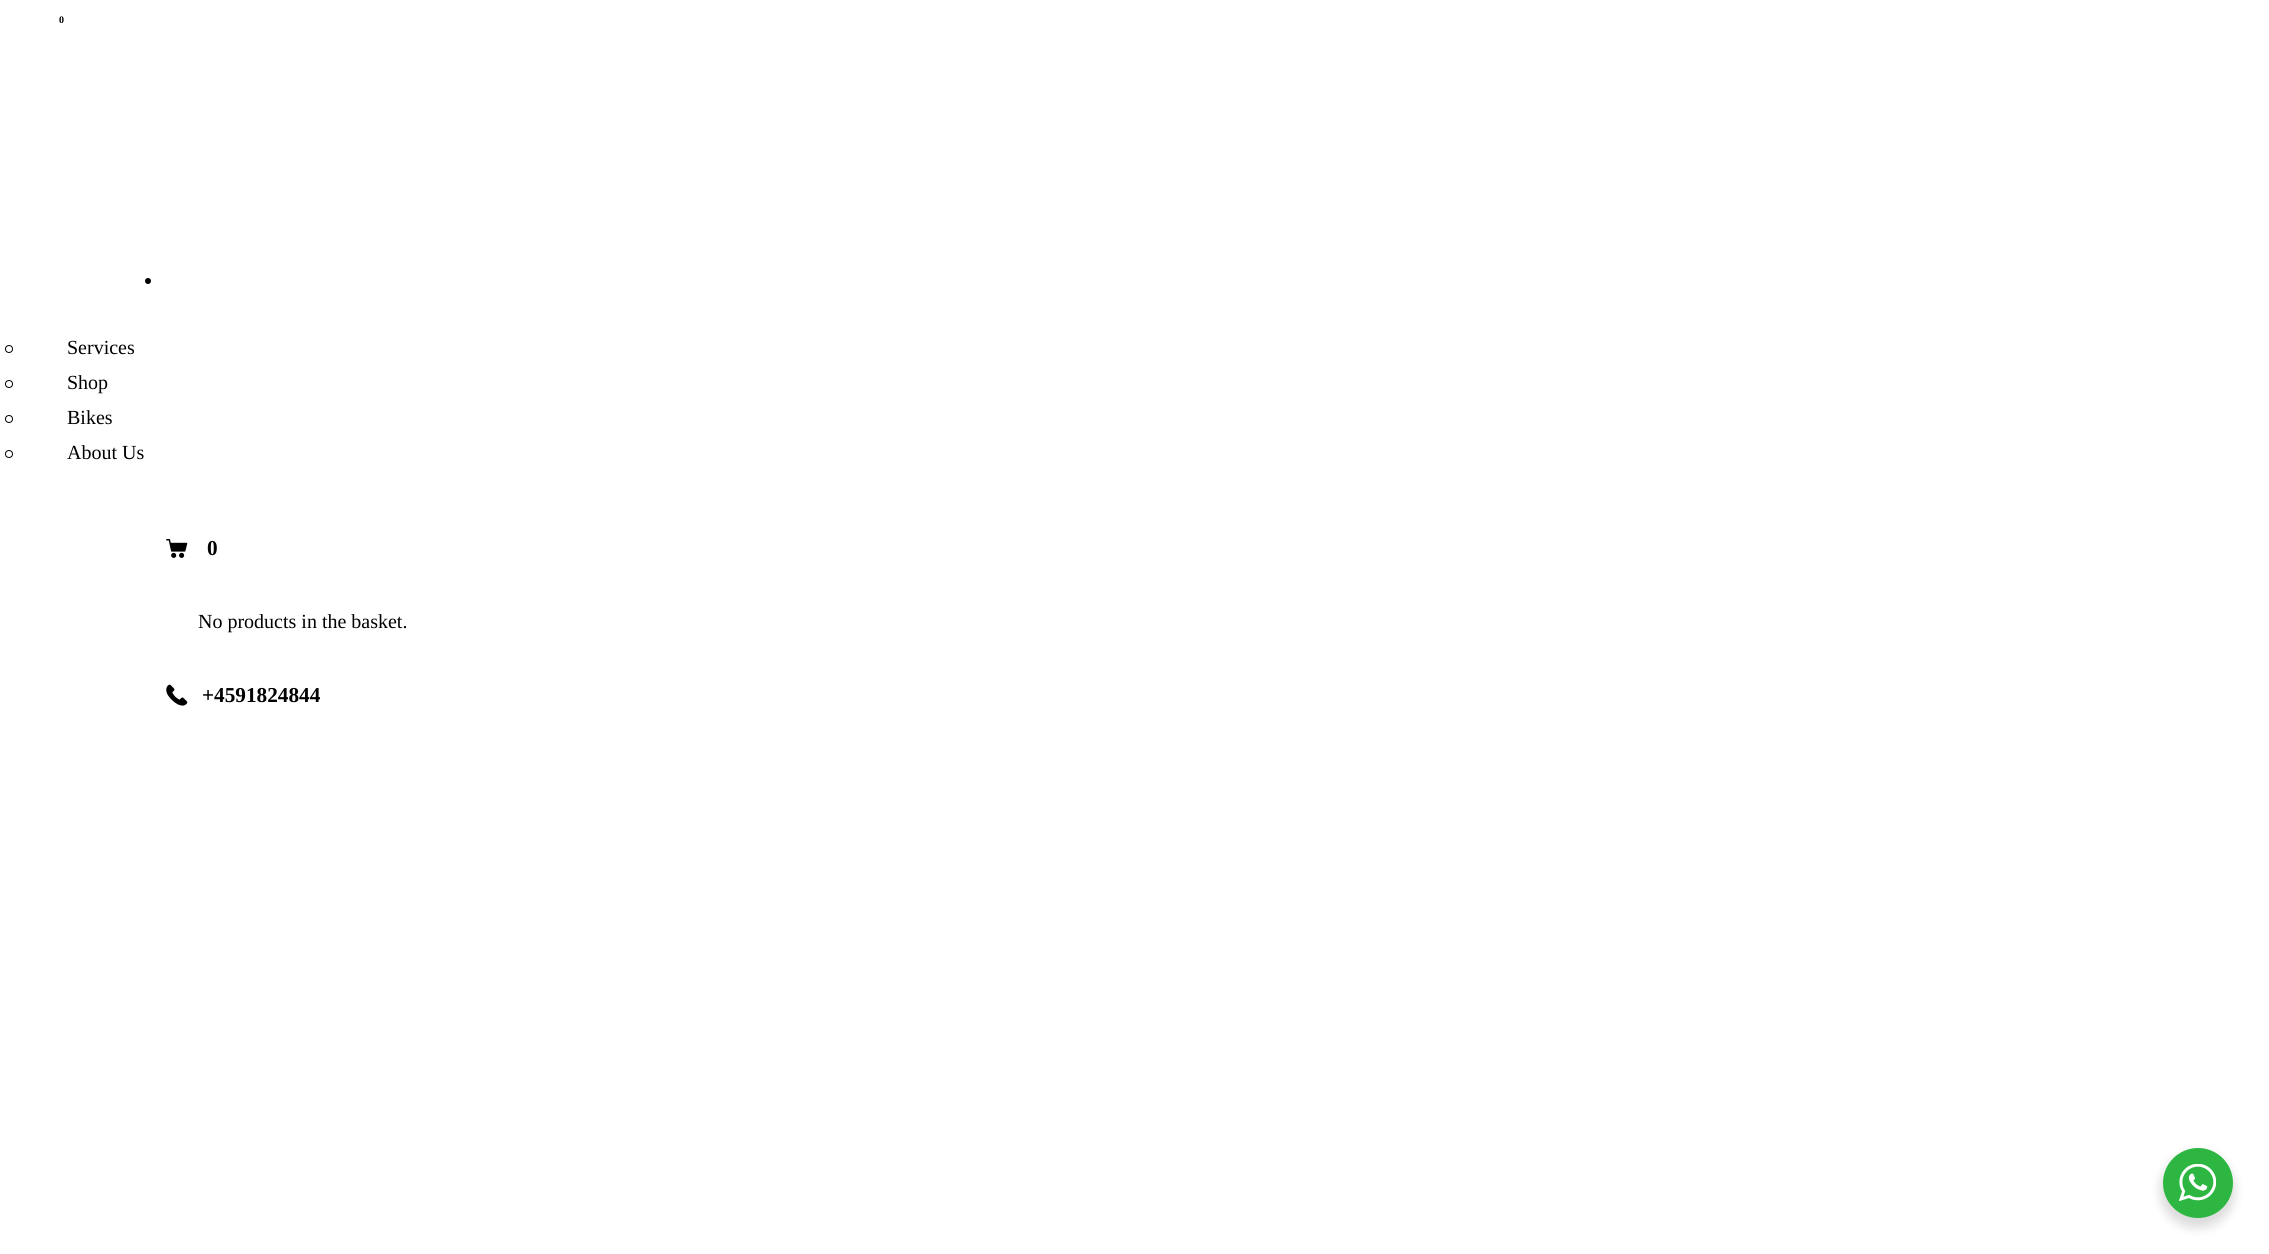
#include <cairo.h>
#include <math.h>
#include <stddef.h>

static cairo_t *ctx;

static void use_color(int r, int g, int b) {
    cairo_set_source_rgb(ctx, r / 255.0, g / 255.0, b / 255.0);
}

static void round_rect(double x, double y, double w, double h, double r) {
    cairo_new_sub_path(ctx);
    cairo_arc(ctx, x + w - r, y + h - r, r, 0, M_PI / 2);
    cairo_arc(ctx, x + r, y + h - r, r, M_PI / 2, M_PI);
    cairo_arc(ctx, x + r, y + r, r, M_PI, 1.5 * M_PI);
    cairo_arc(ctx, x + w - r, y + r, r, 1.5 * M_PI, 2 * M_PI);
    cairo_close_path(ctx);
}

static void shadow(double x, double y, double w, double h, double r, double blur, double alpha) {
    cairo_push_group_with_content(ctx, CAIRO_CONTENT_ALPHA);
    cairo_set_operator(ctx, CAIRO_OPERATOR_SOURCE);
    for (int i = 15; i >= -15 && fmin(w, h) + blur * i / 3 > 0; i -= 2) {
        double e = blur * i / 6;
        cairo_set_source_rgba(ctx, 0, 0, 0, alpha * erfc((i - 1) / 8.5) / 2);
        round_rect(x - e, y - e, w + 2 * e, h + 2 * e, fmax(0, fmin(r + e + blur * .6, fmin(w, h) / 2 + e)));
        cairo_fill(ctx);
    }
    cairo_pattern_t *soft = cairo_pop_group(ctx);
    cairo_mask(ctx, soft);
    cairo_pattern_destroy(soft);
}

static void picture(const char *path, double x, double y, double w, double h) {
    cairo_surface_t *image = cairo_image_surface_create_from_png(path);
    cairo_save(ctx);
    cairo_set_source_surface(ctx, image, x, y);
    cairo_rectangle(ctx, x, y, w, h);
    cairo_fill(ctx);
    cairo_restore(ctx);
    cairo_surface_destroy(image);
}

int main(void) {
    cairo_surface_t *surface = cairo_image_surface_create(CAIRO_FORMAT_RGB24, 2269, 1254);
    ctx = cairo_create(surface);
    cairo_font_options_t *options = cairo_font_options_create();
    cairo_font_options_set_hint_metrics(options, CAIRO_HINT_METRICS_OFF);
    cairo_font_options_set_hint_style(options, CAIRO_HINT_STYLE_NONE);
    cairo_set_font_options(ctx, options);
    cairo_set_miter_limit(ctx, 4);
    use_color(255, 255, 255);
    cairo_paint(ctx);
    cairo_select_font_face(ctx, "Liberation Serif", CAIRO_FONT_SLANT_NORMAL, CAIRO_FONT_WEIGHT_BOLD);
    cairo_set_font_size(ctx, 10);
    use_color(2, 1, 1);
    cairo_move_to(ctx, 59, 23);
    cairo_show_text(ctx, "0");
    picture("img1.png", 166, 539, 22, 19);
    cairo_set_font_size(ctx, 21.25);
    cairo_move_to(ctx, 207, 555);
    cairo_show_text(ctx, "0");
    cairo_select_font_face(ctx, "Liberation Serif", CAIRO_FONT_SLANT_NORMAL, CAIRO_FONT_WEIGHT_NORMAL);
    cairo_set_font_size(ctx, 20);
    cairo_move_to(ctx, 198, 628);
    cairo_show_text(ctx, "No products in the basket.");
    cairo_new_path(ctx);
    cairo_arc(ctx, 148, 281, 3, 0, 2 * M_PI);
    cairo_fill(ctx);
    cairo_arc(ctx, 9, 349, 3.5, 0, 2 * M_PI);
    cairo_set_line_width(ctx, 1);
    cairo_stroke(ctx);
    cairo_move_to(ctx, 67, 354);
    cairo_show_text(ctx, "Services");
    cairo_new_path(ctx);
    cairo_arc(ctx, 9, 384, 3.5, 0, 2 * M_PI);
    cairo_stroke(ctx);
    cairo_move_to(ctx, 67, 389);
    cairo_show_text(ctx, "Shop");
    cairo_new_path(ctx);
    cairo_arc(ctx, 9, 419, 3.5, 0, 2 * M_PI);
    cairo_stroke(ctx);
    cairo_move_to(ctx, 67, 424);
    cairo_show_text(ctx, "Bikes");
    cairo_new_path(ctx);
    cairo_arc(ctx, 9, 454, 3.5, 0, 2 * M_PI);
    cairo_stroke(ctx);
    cairo_move_to(ctx, 67, 459);
    cairo_show_text(ctx, "About Us");
    picture("img2.png", 166, 684, 22, 22);
    cairo_select_font_face(ctx, "Liberation Serif", CAIRO_FONT_SLANT_NORMAL, CAIRO_FONT_WEIGHT_BOLD);
    cairo_set_font_size(ctx, 21.25);
    cairo_move_to(ctx, 202, 702);
    cairo_show_text(ctx, "+4591824844");
    use_color(0, 0, 0);
    shadow(2160, 1153, 75, 75, 37.5, 5, 0.14);
    use_color(45, 183, 66);
    cairo_arc(ctx, 2198, 1183, 35, 0, 2 * M_PI);
    cairo_fill(ctx);
    picture("img3.png", 2179, 1164, 37, 37);
    cairo_surface_write_to_png(surface, "result.png");
    cairo_font_options_destroy(options);
    cairo_destroy(ctx);
    cairo_surface_destroy(surface);
    return 0;
}
